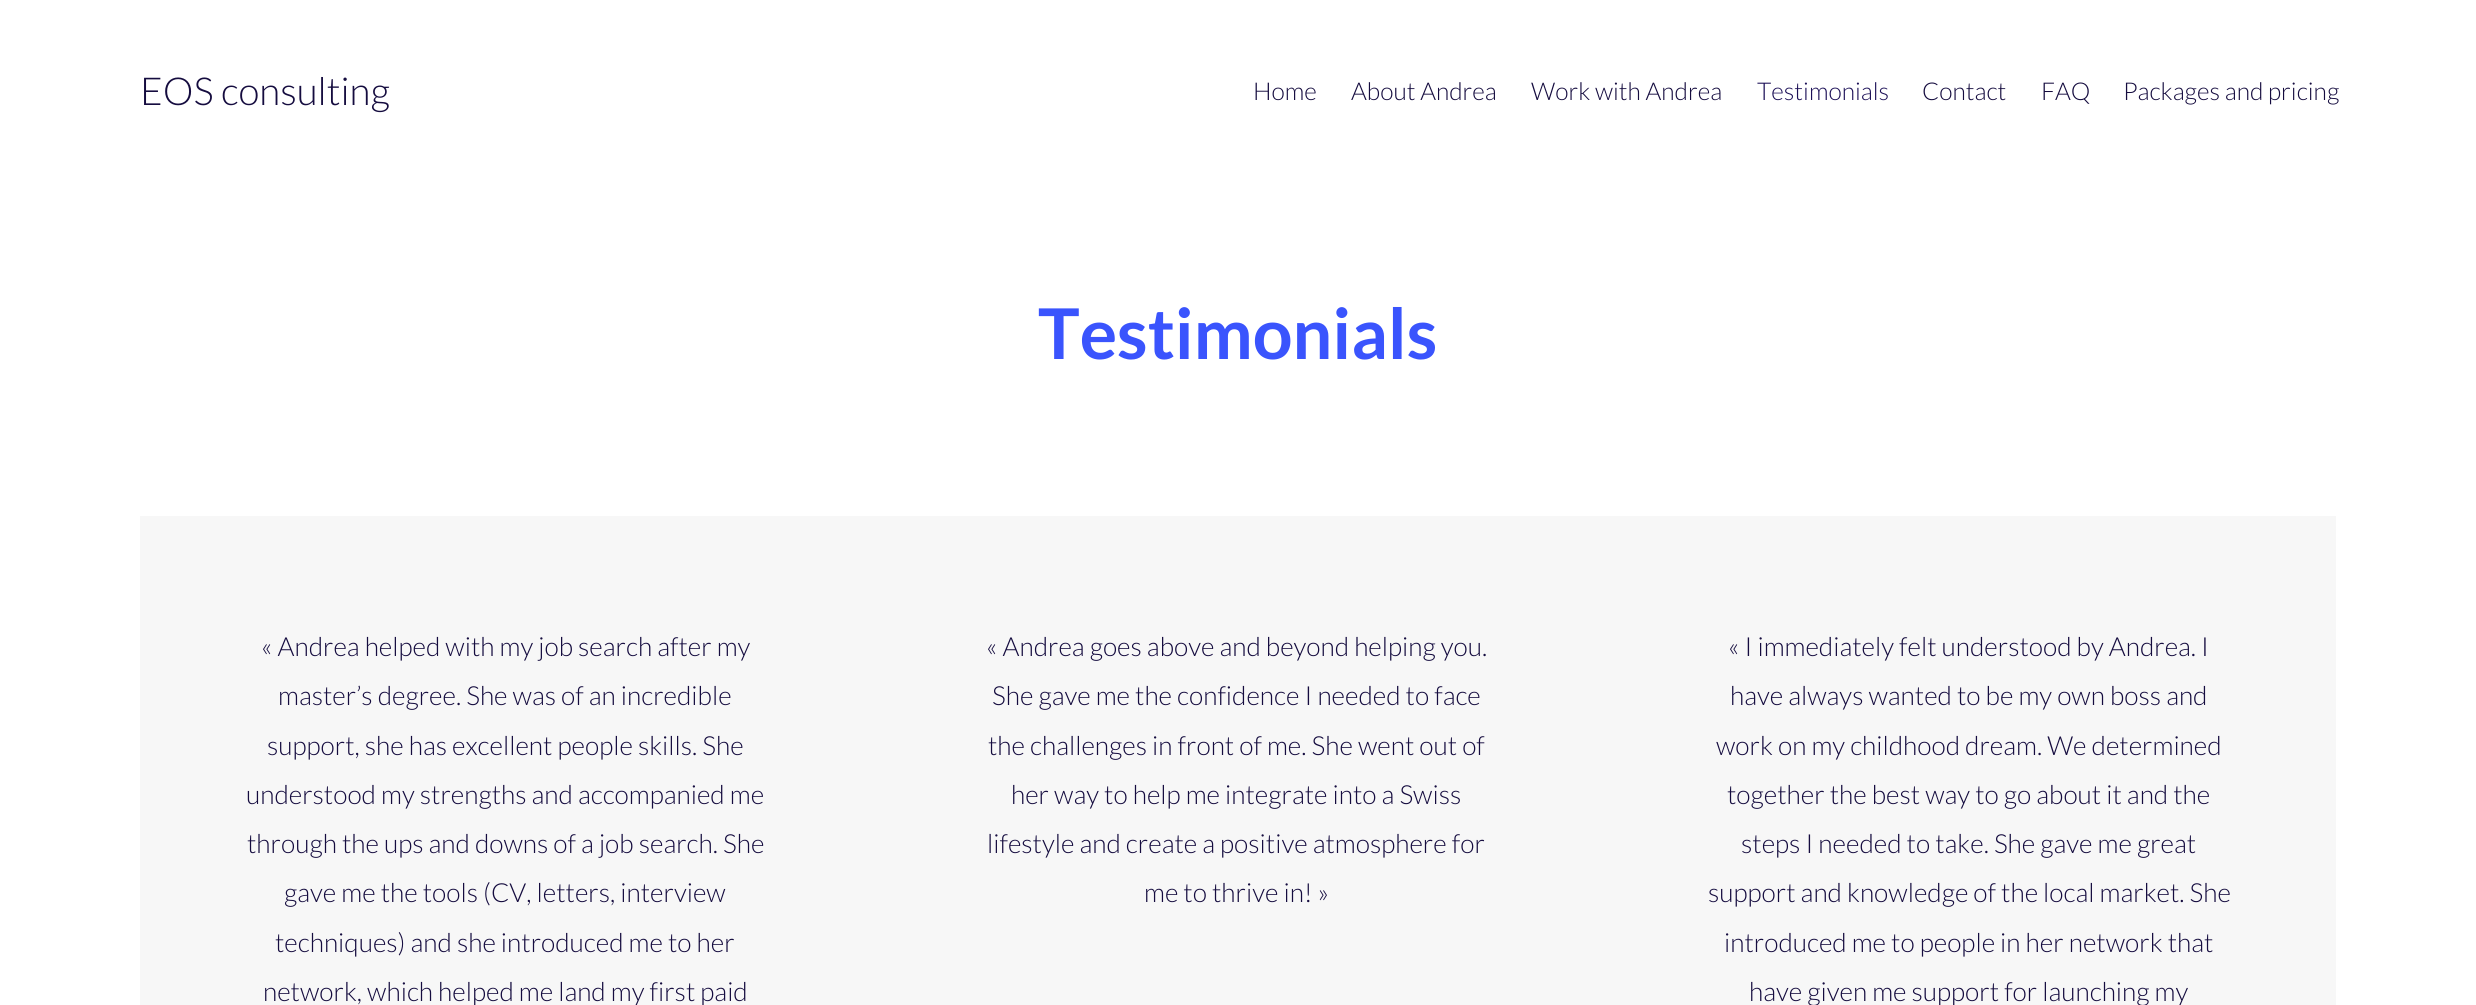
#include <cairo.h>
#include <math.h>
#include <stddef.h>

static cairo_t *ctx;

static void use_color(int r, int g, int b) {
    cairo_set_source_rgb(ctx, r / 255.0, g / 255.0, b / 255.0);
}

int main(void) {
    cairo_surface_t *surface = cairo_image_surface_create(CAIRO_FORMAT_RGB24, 2476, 1005);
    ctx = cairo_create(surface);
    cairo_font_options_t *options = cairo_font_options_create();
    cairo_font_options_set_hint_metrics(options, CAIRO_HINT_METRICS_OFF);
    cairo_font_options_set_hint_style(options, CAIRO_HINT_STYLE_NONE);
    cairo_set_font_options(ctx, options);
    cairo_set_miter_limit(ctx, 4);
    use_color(255, 255, 255);
    cairo_paint(ctx);
    cairo_select_font_face(ctx, "Lato Light", CAIRO_FONT_SLANT_NORMAL, CAIRO_FONT_WEIGHT_NORMAL);
    cairo_set_font_size(ctx, 38.5);
    use_color(21, 12, 63);
    cairo_move_to(ctx, 140, 105);
    cairo_show_text(ctx, "EOS consulting");
    cairo_set_font_size(ctx, 24.5);
    cairo_move_to(ctx, 1253, 100);
    cairo_show_text(ctx, "Home");
    cairo_move_to(ctx, 1351, 100);
    cairo_show_text(ctx, "About Andrea");
    cairo_move_to(ctx, 1531, 100);
    cairo_show_text(ctx, "Work with Andrea");
    use_color(28, 16, 87);
    cairo_move_to(ctx, 1757, 100);
    cairo_show_text(ctx, "Testimonials");
    use_color(21, 12, 63);
    cairo_move_to(ctx, 1922, 100);
    cairo_show_text(ctx, "Contact");
    cairo_move_to(ctx, 2041, 100);
    cairo_show_text(ctx, "FAQ");
    cairo_move_to(ctx, 2123, 100);
    cairo_show_text(ctx, "Packages and pricing");
    cairo_select_font_face(ctx, "Lato", CAIRO_FONT_SLANT_NORMAL, CAIRO_FONT_WEIGHT_BOLD);
    cairo_set_font_size(ctx, 70);
    use_color(58, 84, 253);
    cairo_move_to(ctx, 1038, 359);
    cairo_show_text(ctx, "Testimonials");
    use_color(247, 247, 247);
    cairo_rectangle(ctx, 140, 516, 2196, 489);
    cairo_fill(ctx);
    cairo_select_font_face(ctx, "Lato Light", CAIRO_FONT_SLANT_NORMAL, CAIRO_FONT_WEIGHT_NORMAL);
    cairo_set_font_size(ctx, 26.25);
    use_color(21, 12, 63);
    cairo_move_to(ctx, 261, 656);
    cairo_show_text(ctx, "« Andrea helped with my job search after my");
    cairo_move_to(ctx, 278, 705);
    cairo_show_text(ctx, "master’s degree. She was of an incredible");
    cairo_move_to(ctx, 267, 755);
    cairo_show_text(ctx, "support, she has excellent people skills. She");
    cairo_move_to(ctx, 246, 804);
    cairo_show_text(ctx, "understood my strengths and accompanied me");
    cairo_move_to(ctx, 247, 853);
    cairo_show_text(ctx, "through the ups and downs of a job search. She");
    cairo_move_to(ctx, 284, 902);
    cairo_show_text(ctx, "gave me the tools (CV, letters, interview");
    cairo_move_to(ctx, 275, 952);
    cairo_show_text(ctx, "techniques) and she introduced me to her");
    cairo_move_to(ctx, 263, 1001);
    cairo_show_text(ctx, "network, which helped me land my first paid");
    cairo_move_to(ctx, 986, 656);
    cairo_show_text(ctx, "« Andrea goes above and beyond helping you.");
    cairo_move_to(ctx, 992, 705);
    cairo_show_text(ctx, "She gave me the confidence I needed to face");
    cairo_move_to(ctx, 988, 755);
    cairo_show_text(ctx, "the challenges in front of me. She went out of");
    cairo_move_to(ctx, 1011, 804);
    cairo_show_text(ctx, "her way to help me integrate into a Swiss");
    cairo_move_to(ctx, 987, 853);
    cairo_show_text(ctx, "lifestyle and create a positive atmosphere for");
    cairo_move_to(ctx, 1144, 902);
    cairo_show_text(ctx, "me to thrive in! »");
    cairo_move_to(ctx, 1728, 656);
    cairo_show_text(ctx, "« I immediately felt understood by Andrea. I");
    cairo_move_to(ctx, 1730, 705);
    cairo_show_text(ctx, "have always wanted to be my own boss and");
    cairo_move_to(ctx, 1716, 755);
    cairo_show_text(ctx, "work on my childhood dream. We determined");
    cairo_move_to(ctx, 1727, 804);
    cairo_show_text(ctx, "together the best way to go about it and the");
    cairo_move_to(ctx, 1741, 853);
    cairo_show_text(ctx, "steps I needed to take. She gave me great");
    cairo_move_to(ctx, 1708, 902);
    cairo_show_text(ctx, "support and knowledge of the local market. She");
    cairo_move_to(ctx, 1724, 952);
    cairo_show_text(ctx, "introduced me to people in her network that");
    cairo_move_to(ctx, 1749, 1001);
    cairo_show_text(ctx, "have given me support for launching my");
    cairo_surface_write_to_png(surface, "result.png");
    cairo_font_options_destroy(options);
    cairo_destroy(ctx);
    cairo_surface_destroy(surface);
    return 0;
}
